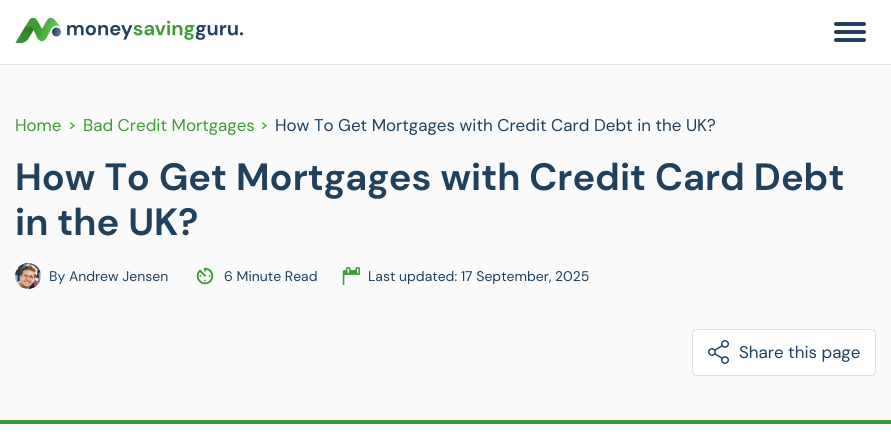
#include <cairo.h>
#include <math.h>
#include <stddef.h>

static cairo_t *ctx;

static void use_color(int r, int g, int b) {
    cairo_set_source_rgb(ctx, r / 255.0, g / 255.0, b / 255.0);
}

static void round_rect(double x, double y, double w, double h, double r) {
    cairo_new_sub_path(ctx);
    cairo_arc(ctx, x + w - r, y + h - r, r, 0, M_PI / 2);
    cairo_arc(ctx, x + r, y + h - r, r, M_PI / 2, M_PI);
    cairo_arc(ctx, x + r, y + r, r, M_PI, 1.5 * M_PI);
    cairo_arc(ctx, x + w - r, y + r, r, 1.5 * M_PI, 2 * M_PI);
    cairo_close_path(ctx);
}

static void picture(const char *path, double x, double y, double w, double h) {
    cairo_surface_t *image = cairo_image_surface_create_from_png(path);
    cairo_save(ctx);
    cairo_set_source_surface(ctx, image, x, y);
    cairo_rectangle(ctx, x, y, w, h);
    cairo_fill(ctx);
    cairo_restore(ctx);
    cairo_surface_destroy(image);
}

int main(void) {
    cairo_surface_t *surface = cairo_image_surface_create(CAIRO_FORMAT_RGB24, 891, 445);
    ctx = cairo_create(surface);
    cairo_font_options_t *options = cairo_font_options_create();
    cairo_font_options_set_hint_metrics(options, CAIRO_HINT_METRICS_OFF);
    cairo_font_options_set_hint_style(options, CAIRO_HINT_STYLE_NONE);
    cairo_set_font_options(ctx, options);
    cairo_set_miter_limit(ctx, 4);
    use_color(255, 255, 255);
    cairo_paint(ctx);
    picture("img1.png", 15, 17, 229, 27);
    use_color(32, 64, 91);
    round_rect(834, 22, 32, 4, 2);
    cairo_fill(ctx);
    round_rect(834, 30, 32, 4, 2);
    cairo_fill(ctx);
    round_rect(834, 38, 32, 4, 2);
    cairo_fill(ctx);
    use_color(250, 250, 250);
    cairo_rectangle(ctx, 0, 65, 891, 355);
    cairo_fill(ctx);
    use_color(226, 226, 226);
    cairo_rectangle(ctx, 0, 64, 891, 1);
    cairo_fill(ctx);
    use_color(61, 156, 53);
    cairo_rectangle(ctx, 0, 420, 891, 4);
    cairo_fill(ctx);
    cairo_select_font_face(ctx, "DM Sans", CAIRO_FONT_SLANT_NORMAL, CAIRO_FONT_WEIGHT_NORMAL);
    cairo_set_font_size(ctx, 17);
    cairo_move_to(ctx, 15, 131);
    cairo_show_text(ctx, "Home");
    cairo_new_path(ctx);
    cairo_move_to(ctx, 70.5, 123);
    cairo_line_to(ctx, 74, 125.5);
    cairo_line_to(ctx, 70.5, 128.5);
    cairo_set_line_width(ctx, 1.2);
    cairo_set_line_cap(ctx, CAIRO_LINE_CAP_ROUND);
    cairo_stroke(ctx);
    cairo_move_to(ctx, 83, 131);
    cairo_show_text(ctx, "Bad Credit Mortgages");
    cairo_new_path(ctx);
    cairo_move_to(ctx, 262.5, 123);
    cairo_line_to(ctx, 266, 125.5);
    cairo_line_to(ctx, 262.5, 128.5);
    cairo_stroke(ctx);
    use_color(32, 64, 91);
    cairo_move_to(ctx, 275, 131);
    cairo_show_text(ctx, "How To Get Mortgages with Credit Card Debt in the UK?");
    cairo_select_font_face(ctx, "DM Sans", CAIRO_FONT_SLANT_NORMAL, CAIRO_FONT_WEIGHT_BOLD);
    cairo_set_font_size(ctx, 38);
    cairo_move_to(ctx, 15, 190);
    cairo_show_text(ctx, "How To Get Mortgages with Credit Card Debt");
    cairo_move_to(ctx, 15, 235);
    cairo_show_text(ctx, "in the UK?");
    picture("img2.png", 15, 263, 26, 26);
    cairo_select_font_face(ctx, "DM Sans", CAIRO_FONT_SLANT_NORMAL, CAIRO_FONT_WEIGHT_NORMAL);
    cairo_set_font_size(ctx, 14);
    cairo_move_to(ctx, 49, 281);
    cairo_show_text(ctx, "By Andrew Jensen");
    picture("img3.png", 196, 267, 18, 18);
    cairo_move_to(ctx, 224, 281);
    cairo_show_text(ctx, "6 Minute Read");
    picture("img4.png", 342, 267, 18, 18);
    cairo_move_to(ctx, 368, 281);
    cairo_show_text(ctx, "Last updated: 17 September, 2025");
    use_color(255, 255, 255);
    round_rect(692.5, 329.5, 183, 46, 4.5);
    cairo_fill_preserve(ctx);
    use_color(224, 223, 223);
    cairo_set_line_width(ctx, 1);
    cairo_set_line_cap(ctx, CAIRO_LINE_CAP_BUTT);
    cairo_stroke(ctx);
    picture("img5.png", 708, 340, 21, 24);
    cairo_set_font_size(ctx, 17);
    use_color(32, 64, 91);
    cairo_move_to(ctx, 739, 358);
    cairo_show_text(ctx, "Share this page");
    cairo_surface_write_to_png(surface, "result.png");
    cairo_font_options_destroy(options);
    cairo_destroy(ctx);
    cairo_surface_destroy(surface);
    return 0;
}
